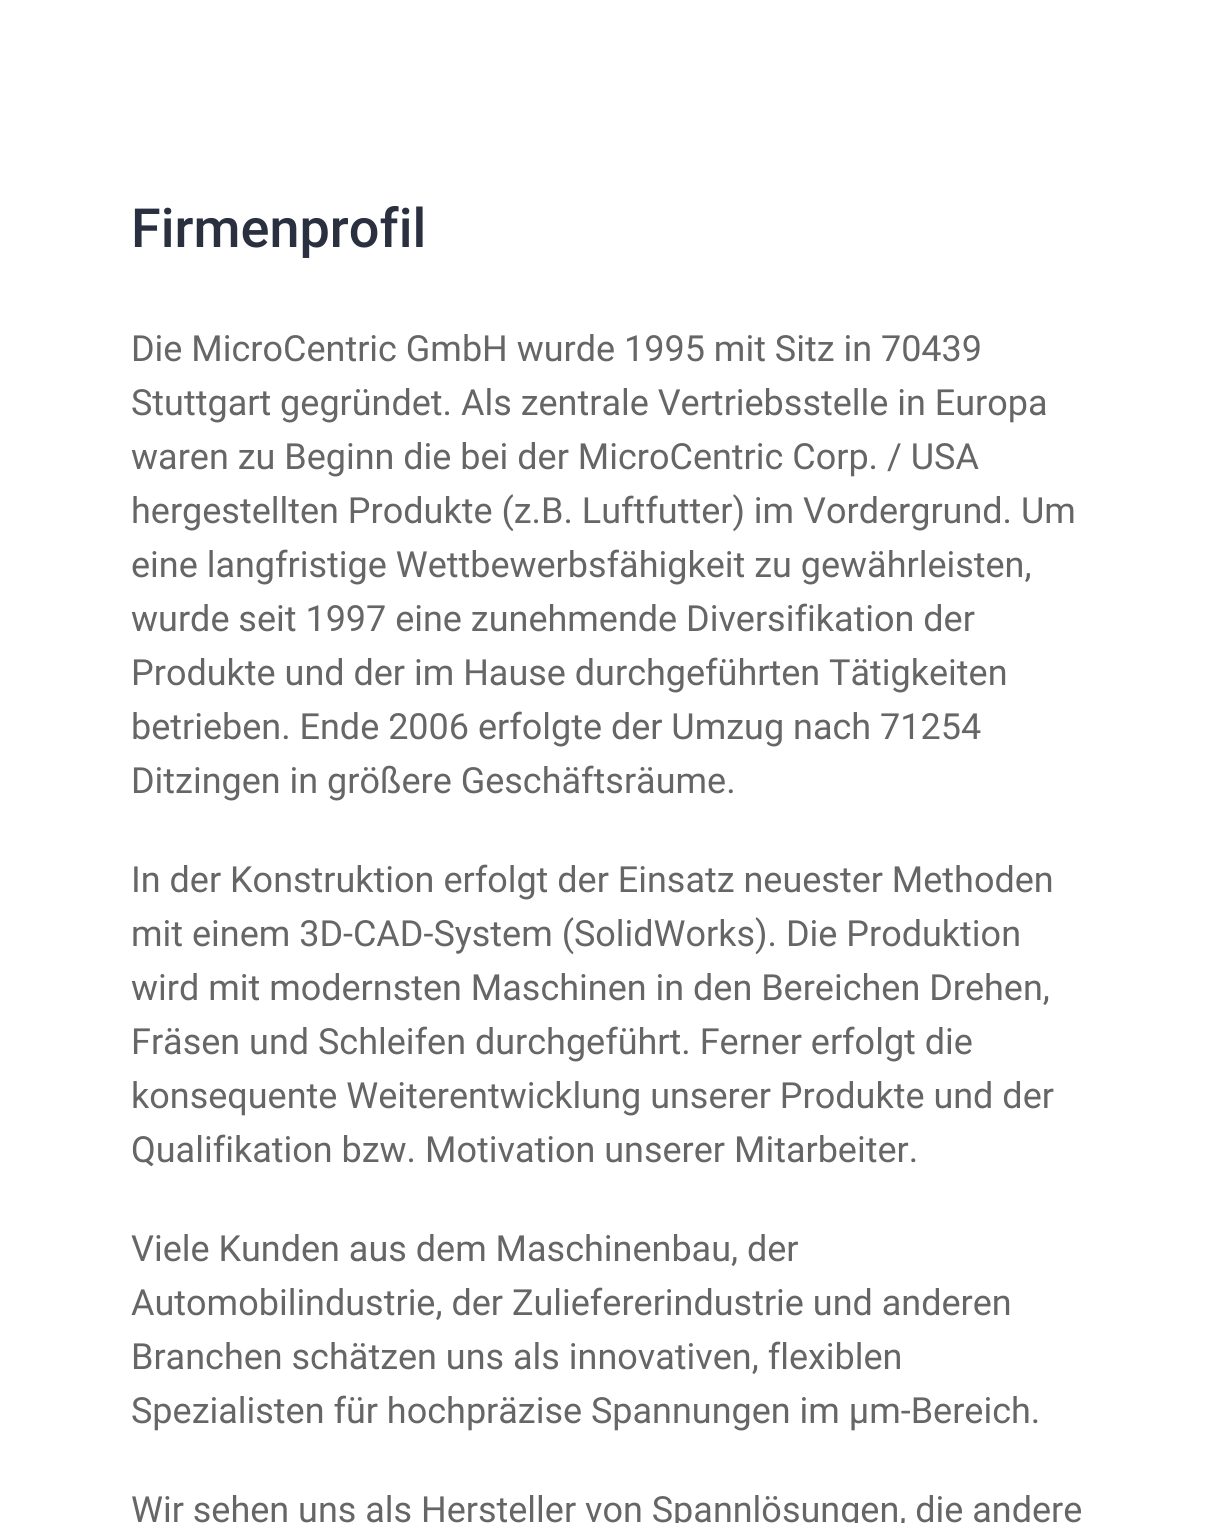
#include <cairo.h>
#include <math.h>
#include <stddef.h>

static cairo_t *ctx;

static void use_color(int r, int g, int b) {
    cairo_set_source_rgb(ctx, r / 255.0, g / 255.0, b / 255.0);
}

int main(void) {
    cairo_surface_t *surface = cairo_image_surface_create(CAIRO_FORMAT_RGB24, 1212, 1523);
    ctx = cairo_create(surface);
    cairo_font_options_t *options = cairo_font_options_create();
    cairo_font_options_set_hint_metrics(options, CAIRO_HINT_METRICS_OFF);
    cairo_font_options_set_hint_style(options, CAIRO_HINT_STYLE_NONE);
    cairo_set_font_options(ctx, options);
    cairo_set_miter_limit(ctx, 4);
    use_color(255, 255, 255);
    cairo_paint(ctx);
    cairo_select_font_face(ctx, "Roboto Medium", CAIRO_FONT_SLANT_NORMAL, CAIRO_FONT_WEIGHT_NORMAL);
    cairo_set_font_size(ctx, 54);
    use_color(42, 48, 63);
    cairo_move_to(ctx, 131, 247);
    cairo_show_text(ctx, "Firmenprofil");
    cairo_select_font_face(ctx, "Roboto", CAIRO_FONT_SLANT_NORMAL, CAIRO_FONT_WEIGHT_NORMAL);
    cairo_set_font_size(ctx, 36);
    use_color(102, 102, 102);
    cairo_move_to(ctx, 131, 361);
    cairo_show_text(ctx, "Die MicroCentric GmbH wurde 1995 mit Sitz in 70439");
    cairo_move_to(ctx, 131, 415);
    cairo_show_text(ctx, "Stuttgart gegründet. Als zentrale Vertriebsstelle in Europa");
    cairo_move_to(ctx, 131, 469);
    cairo_show_text(ctx, "waren zu Beginn die bei der MicroCentric Corp. / USA");
    cairo_move_to(ctx, 131, 523);
    cairo_show_text(ctx, "hergestellten Produkte (z.B. Luftfutter) im Vordergrund. Um");
    cairo_move_to(ctx, 131, 577);
    cairo_show_text(ctx, "eine langfristige Wettbewerbsfähigkeit zu gewährleisten,");
    cairo_move_to(ctx, 131, 631);
    cairo_show_text(ctx, "wurde seit 1997 eine zunehmende Diversifikation der");
    cairo_move_to(ctx, 131, 685);
    cairo_show_text(ctx, "Produkte und der im Hause durchgeführten Tätigkeiten");
    cairo_move_to(ctx, 131, 739);
    cairo_show_text(ctx, "betrieben. Ende 2006 erfolgte der Umzug nach 71254");
    cairo_move_to(ctx, 131, 793);
    cairo_show_text(ctx, "Ditzingen in größere Geschäftsräume.");
    cairo_move_to(ctx, 131, 892);
    cairo_show_text(ctx, "In der Konstruktion erfolgt der Einsatz neuester Methoden");
    cairo_move_to(ctx, 131, 946);
    cairo_show_text(ctx, "mit einem 3D-CAD-System (SolidWorks). Die Produktion");
    cairo_move_to(ctx, 131, 1000);
    cairo_show_text(ctx, "wird mit modernsten Maschinen in den Bereichen Drehen,");
    cairo_move_to(ctx, 131, 1054);
    cairo_show_text(ctx, "Fräsen und Schleifen durchgeführt. Ferner erfolgt die");
    cairo_move_to(ctx, 131, 1108);
    cairo_show_text(ctx, "konsequente Weiterentwicklung unserer Produkte und der");
    cairo_move_to(ctx, 131, 1162);
    cairo_show_text(ctx, "Qualifikation bzw. Motivation unserer Mitarbeiter.");
    cairo_move_to(ctx, 131, 1261);
    cairo_show_text(ctx, "Viele Kunden aus dem Maschinenbau, der");
    cairo_move_to(ctx, 131, 1315);
    cairo_show_text(ctx, "Automobilindustrie, der Zuliefererindustrie und anderen");
    cairo_move_to(ctx, 131, 1369);
    cairo_show_text(ctx, "Branchen schätzen uns als innovativen, flexiblen");
    cairo_move_to(ctx, 131, 1423);
    cairo_show_text(ctx, "Spezialisten für hochpräzise Spannungen im µm-Bereich.");
    cairo_move_to(ctx, 131, 1522);
    cairo_show_text(ctx, "Wir sehen uns als Hersteller von Spannlösungen, die andere");
    cairo_surface_write_to_png(surface, "result.png");
    cairo_font_options_destroy(options);
    cairo_destroy(ctx);
    cairo_surface_destroy(surface);
    return 0;
}
